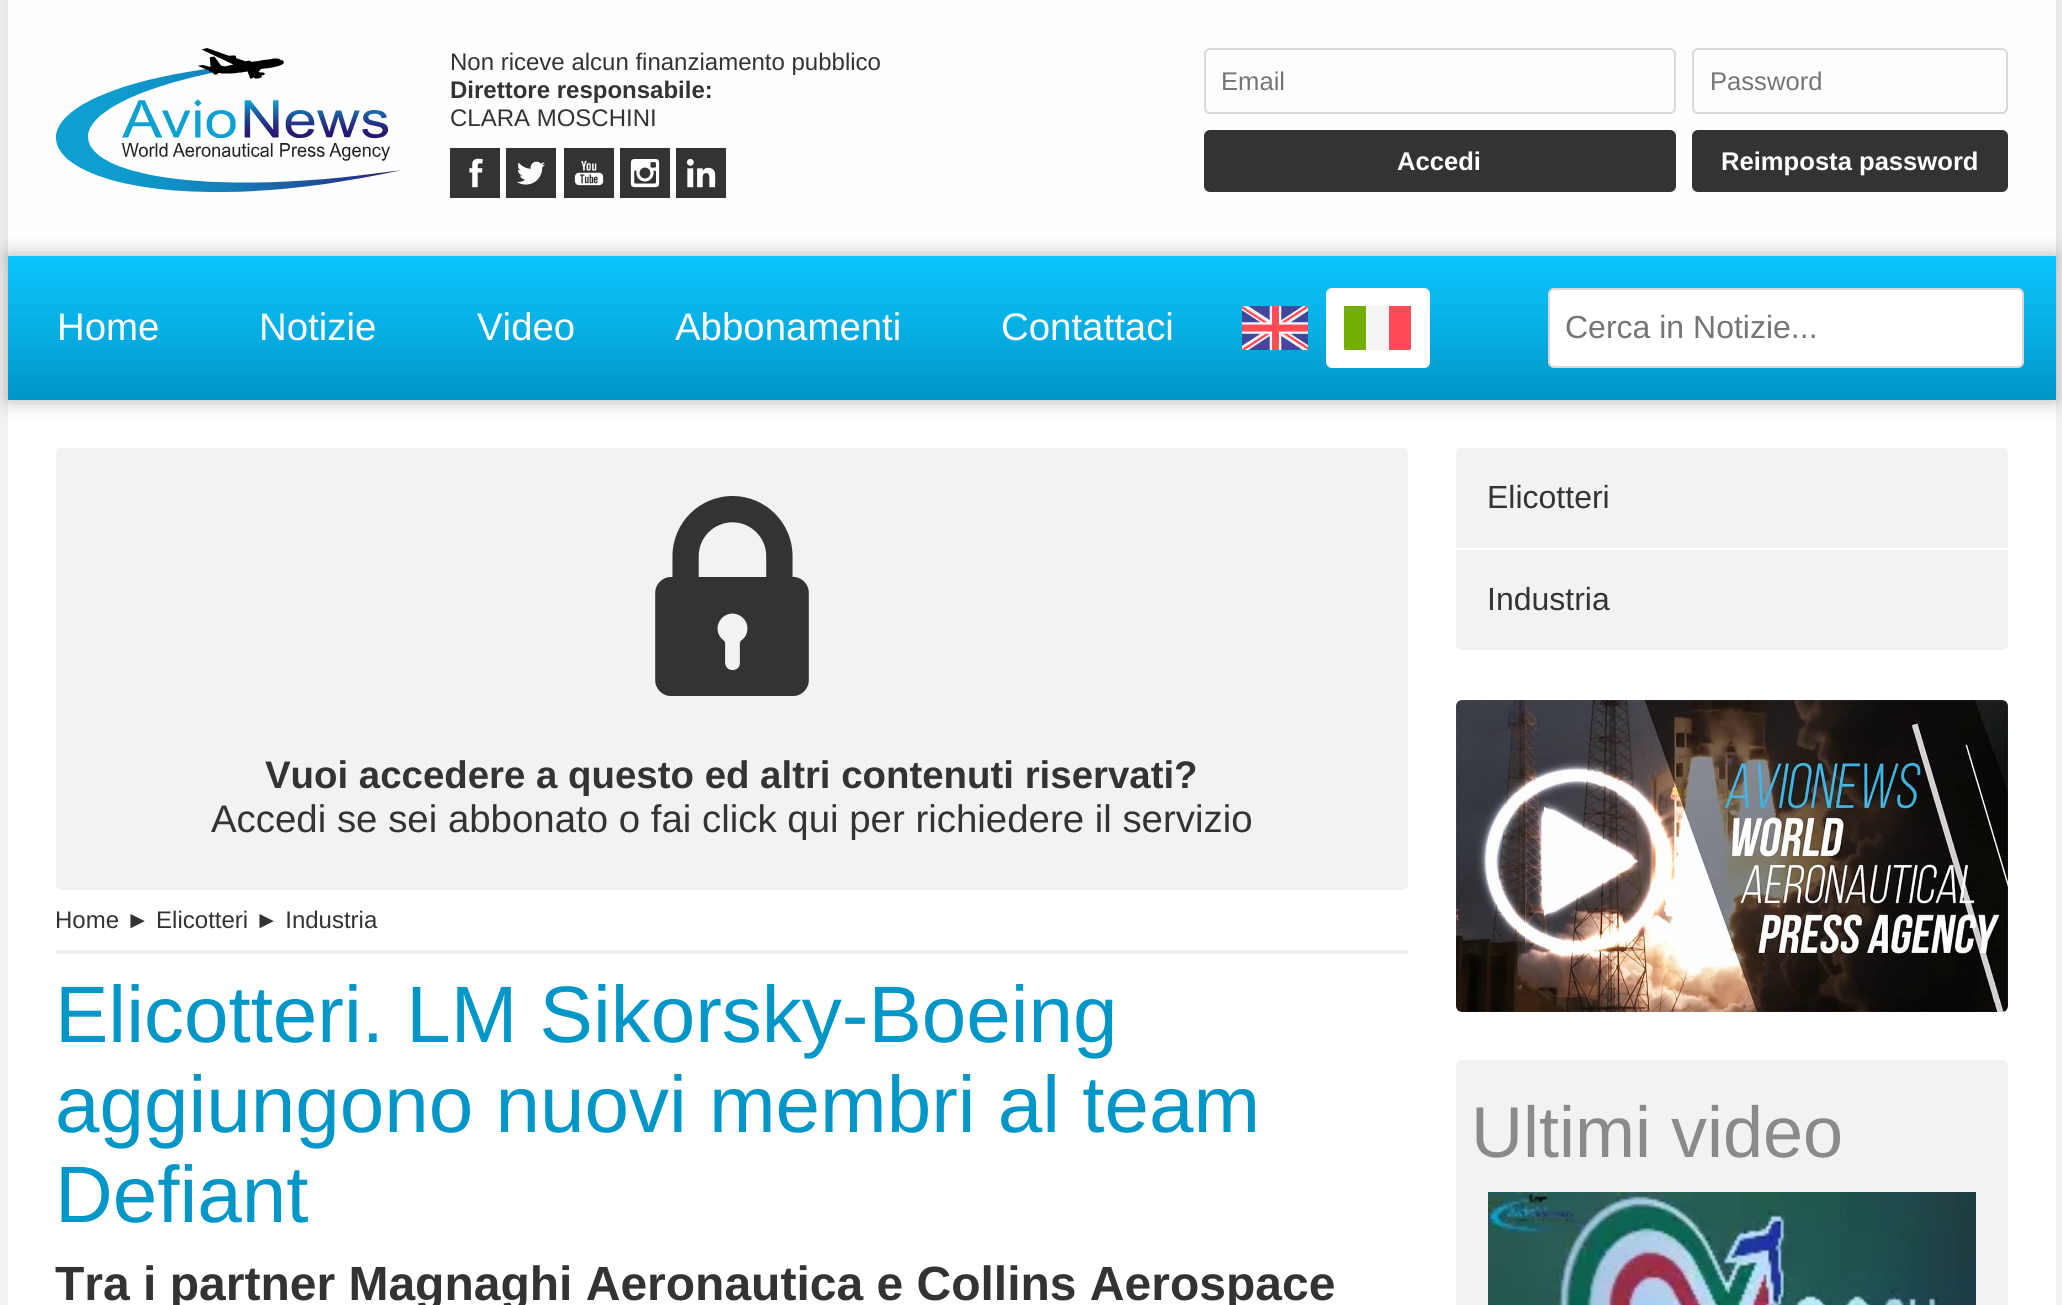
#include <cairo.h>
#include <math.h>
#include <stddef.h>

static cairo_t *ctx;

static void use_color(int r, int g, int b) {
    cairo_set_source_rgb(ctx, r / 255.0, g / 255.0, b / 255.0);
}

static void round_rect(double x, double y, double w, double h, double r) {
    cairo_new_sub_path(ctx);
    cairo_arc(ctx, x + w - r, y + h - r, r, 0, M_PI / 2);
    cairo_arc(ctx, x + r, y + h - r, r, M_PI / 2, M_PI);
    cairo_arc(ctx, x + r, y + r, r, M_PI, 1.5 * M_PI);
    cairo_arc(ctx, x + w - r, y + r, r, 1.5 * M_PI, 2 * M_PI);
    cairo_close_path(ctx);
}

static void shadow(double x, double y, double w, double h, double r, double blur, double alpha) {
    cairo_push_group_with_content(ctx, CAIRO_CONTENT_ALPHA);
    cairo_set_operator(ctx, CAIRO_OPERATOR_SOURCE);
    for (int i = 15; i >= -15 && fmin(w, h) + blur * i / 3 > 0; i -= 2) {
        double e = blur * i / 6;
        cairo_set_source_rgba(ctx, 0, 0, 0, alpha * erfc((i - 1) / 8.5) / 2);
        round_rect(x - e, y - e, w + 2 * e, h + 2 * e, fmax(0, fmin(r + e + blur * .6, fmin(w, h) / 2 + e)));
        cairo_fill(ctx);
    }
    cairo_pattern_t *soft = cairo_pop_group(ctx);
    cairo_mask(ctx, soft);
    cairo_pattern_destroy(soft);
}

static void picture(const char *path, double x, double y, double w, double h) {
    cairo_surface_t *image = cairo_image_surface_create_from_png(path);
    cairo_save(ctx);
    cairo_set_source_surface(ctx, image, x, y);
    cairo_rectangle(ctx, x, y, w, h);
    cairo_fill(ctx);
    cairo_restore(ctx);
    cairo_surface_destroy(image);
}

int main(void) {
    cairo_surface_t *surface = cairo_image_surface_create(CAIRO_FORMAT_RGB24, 2062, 1305);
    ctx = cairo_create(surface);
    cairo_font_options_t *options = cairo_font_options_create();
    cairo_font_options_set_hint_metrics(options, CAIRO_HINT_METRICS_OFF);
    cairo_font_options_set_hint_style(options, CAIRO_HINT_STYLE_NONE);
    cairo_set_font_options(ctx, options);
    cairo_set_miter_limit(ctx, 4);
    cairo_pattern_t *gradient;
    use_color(242, 242, 242);
    cairo_paint(ctx);
    use_color(0, 0, 0);
    shadow(8, 0, 2048, 256, 0, 10, 0.1);
    use_color(254, 254, 254);
    cairo_rectangle(ctx, 8, 0, 2048, 256);
    cairo_fill(ctx);
    picture("img1.png", 56, 48, 346, 144);
    cairo_select_font_face(ctx, "Liberation Sans", CAIRO_FONT_SLANT_NORMAL, CAIRO_FONT_WEIGHT_NORMAL);
    cairo_set_font_size(ctx, 24);
    use_color(51, 51, 51);
    cairo_move_to(ctx, 450, 70);
    cairo_show_text(ctx, "Non riceve alcun finanziamento pubblico");
    cairo_select_font_face(ctx, "Liberation Sans", CAIRO_FONT_SLANT_NORMAL, CAIRO_FONT_WEIGHT_BOLD);
    cairo_move_to(ctx, 450, 98);
    cairo_show_text(ctx, "Direttore responsabile:");
    cairo_select_font_face(ctx, "Liberation Sans", CAIRO_FONT_SLANT_NORMAL, CAIRO_FONT_WEIGHT_NORMAL);
    cairo_move_to(ctx, 450, 126);
    cairo_show_text(ctx, "CLARA MOSCHINI");
    picture("img2.png", 450, 148, 50, 50);
    picture("img3.png", 506, 148, 50, 50);
    picture("img4.png", 564, 148, 50, 50);
    picture("img5.png", 620, 148, 50, 50);
    picture("img6.png", 676, 148, 50, 50);
    round_rect(1205, 49, 470, 64, 5);
    use_color(216, 216, 216);
    cairo_stroke(ctx);
    cairo_set_font_size(ctx, 25.6);
    use_color(117, 117, 117);
    cairo_move_to(ctx, 1221, 90);
    cairo_show_text(ctx, "Email");
    round_rect(1693, 49, 314, 64, 5);
    use_color(216, 216, 216);
    cairo_stroke(ctx);
    use_color(117, 117, 117);
    cairo_move_to(ctx, 1710, 90);
    cairo_show_text(ctx, "Password");
    use_color(51, 51, 51);
    round_rect(1204, 130, 472, 62, 6);
    cairo_fill(ctx);
    cairo_select_font_face(ctx, "Liberation Sans", CAIRO_FONT_SLANT_NORMAL, CAIRO_FONT_WEIGHT_BOLD);
    use_color(255, 255, 255);
    cairo_move_to(ctx, 1397, 170);
    cairo_show_text(ctx, "Accedi");
    use_color(51, 51, 51);
    round_rect(1692, 130, 316, 62, 6);
    cairo_fill(ctx);
    use_color(255, 255, 255);
    cairo_move_to(ctx, 1721, 170);
    cairo_show_text(ctx, "Reimposta password");
    cairo_rectangle(ctx, 8, 400, 2048, 905);
    cairo_fill(ctx);
    cairo_save(ctx);
    cairo_set_fill_rule(ctx, CAIRO_FILL_RULE_EVEN_ODD);
    cairo_new_path(ctx);
    cairo_move_to(ctx, 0, 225);
    cairo_line_to(ctx, 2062, 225);
    cairo_line_to(ctx, 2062, 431);
    cairo_line_to(ctx, 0, 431);
    cairo_close_path(ctx);
    cairo_move_to(ctx, 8, 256);
    cairo_line_to(ctx, 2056, 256);
    cairo_line_to(ctx, 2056, 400);
    cairo_line_to(ctx, 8, 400);
    cairo_close_path(ctx);
    cairo_clip(ctx);
    use_color(0, 0, 0);
    shadow(8, 256, 2048, 144, 0, 10, 0.3);
    cairo_restore(ctx);
    gradient = cairo_pattern_create_linear(1032, 256, 1032, 400);
    cairo_pattern_add_color_stop_rgba(gradient, 0, 0, 0.765, 1, 0.95);
    cairo_pattern_add_color_stop_rgba(gradient, 1, 0, 0.588, 0.78, 1);
    cairo_set_source(ctx, gradient);
    cairo_pattern_destroy(gradient);
    cairo_rectangle(ctx, 8, 256, 2048, 144);
    cairo_fill(ctx);
    cairo_select_font_face(ctx, "Liberation Sans", CAIRO_FONT_SLANT_NORMAL, CAIRO_FONT_WEIGHT_NORMAL);
    cairo_set_font_size(ctx, 38.4);
    use_color(255, 255, 255);
    cairo_move_to(ctx, 57, 340);
    cairo_show_text(ctx, "Home");
    cairo_move_to(ctx, 259, 340);
    cairo_show_text(ctx, "Notizie");
    cairo_move_to(ctx, 477, 340);
    cairo_show_text(ctx, "Video");
    cairo_move_to(ctx, 675, 340);
    cairo_show_text(ctx, "Abbonamenti");
    cairo_move_to(ctx, 1001, 340);
    cairo_show_text(ctx, "Contattaci");
    picture("img7.png", 1242, 306, 66, 44);
    round_rect(1326, 288, 104, 80, 6);
    cairo_fill(ctx);
    use_color(115, 175, 0);
    cairo_new_path(ctx);
    cairo_move_to(ctx, 1366, 350);
    cairo_line_to(ctx, 1345, 350);
    cairo_curve_to(ctx, 1345, 350, 1344, 349, 1344, 349);
    cairo_line_to(ctx, 1344, 307);
    cairo_curve_to(ctx, 1344, 306, 1345, 306, 1345, 306);
    cairo_line_to(ctx, 1366, 306);
    cairo_close_path(ctx);
    cairo_fill(ctx);
    use_color(245, 245, 245);
    cairo_rectangle(ctx, 1366, 306, 23, 44);
    cairo_fill(ctx);
    use_color(255, 75, 85);
    cairo_new_path(ctx);
    cairo_move_to(ctx, 1410, 350);
    cairo_line_to(ctx, 1389, 350);
    cairo_line_to(ctx, 1389, 306);
    cairo_line_to(ctx, 1411, 306);
    cairo_line_to(ctx, 1411, 349);
    cairo_close_path(ctx);
    cairo_fill(ctx);
    use_color(255, 255, 255);
    round_rect(1549, 289, 474, 78, 5);
    cairo_fill_preserve(ctx);
    use_color(216, 216, 216);
    cairo_stroke(ctx);
    cairo_set_font_size(ctx, 32);
    use_color(117, 117, 117);
    cairo_move_to(ctx, 1565, 338);
    cairo_show_text(ctx, "Cerca in Notizie...");
    use_color(242, 242, 242);
    round_rect(56, 448, 1352, 442, 6);
    cairo_fill(ctx);
    picture("img8.png", 655, 496, 154, 200);
    cairo_select_font_face(ctx, "Liberation Sans", CAIRO_FONT_SLANT_NORMAL, CAIRO_FONT_WEIGHT_BOLD);
    cairo_set_font_size(ctx, 38.4);
    use_color(51, 51, 51);
    cairo_move_to(ctx, 265, 788);
    cairo_show_text(ctx, "Vuoi accedere a questo ed altri contenuti riservati?");
    cairo_select_font_face(ctx, "Liberation Sans", CAIRO_FONT_SLANT_NORMAL, CAIRO_FONT_WEIGHT_NORMAL);
    cairo_move_to(ctx, 211, 832);
    cairo_show_text(ctx, "Accedi se sei abbonato o fai click qui per richiedere il servizio");
    use_color(242, 242, 242);
    cairo_rectangle(ctx, 56, 950, 1352, 4);
    cairo_fill(ctx);
    cairo_set_font_size(ctx, 24);
    use_color(51, 51, 51);
    cairo_move_to(ctx, 55, 928);
    cairo_show_text(ctx, "Home ► Elicotteri ► Industria");
    cairo_set_font_size(ctx, 80);
    use_color(0, 150, 199);
    cairo_move_to(ctx, 55, 1042);
    cairo_show_text(ctx, "Elicotteri. LM Sikorsky-Boeing");
    cairo_move_to(ctx, 55, 1132);
    cairo_show_text(ctx, "aggiungono nuovi membri al team");
    cairo_move_to(ctx, 55, 1222);
    cairo_show_text(ctx, "Defiant");
    cairo_select_font_face(ctx, "Liberation Sans", CAIRO_FONT_SLANT_NORMAL, CAIRO_FONT_WEIGHT_BOLD);
    cairo_set_font_size(ctx, 48);
    use_color(51, 51, 51);
    cairo_move_to(ctx, 55, 1300);
    cairo_show_text(ctx, "Tra i partner Magnaghi Aeronautica e Collins Aerospace");
    use_color(242, 242, 242);
    cairo_new_path(ctx);
    cairo_move_to(ctx, 1462, 448);
    cairo_line_to(ctx, 2002, 448);
    cairo_curve_to(ctx, 2005.5, 448, 2008, 450.5, 2008, 454);
    cairo_line_to(ctx, 2008, 548);
    cairo_line_to(ctx, 1456, 548);
    cairo_line_to(ctx, 1456, 454);
    cairo_curve_to(ctx, 1456, 450.5, 1458.5, 448, 1462, 448);
    cairo_close_path(ctx);
    cairo_fill(ctx);
    cairo_select_font_face(ctx, "Liberation Sans", CAIRO_FONT_SLANT_NORMAL, CAIRO_FONT_WEIGHT_NORMAL);
    cairo_set_font_size(ctx, 32);
    use_color(51, 51, 51);
    cairo_move_to(ctx, 1487, 508);
    cairo_show_text(ctx, "Elicotteri");
    use_color(242, 242, 242);
    cairo_new_path(ctx);
    cairo_move_to(ctx, 1456, 550);
    cairo_line_to(ctx, 2008, 550);
    cairo_line_to(ctx, 2008, 646);
    cairo_curve_to(ctx, 2008, 648, 2005, 650, 2002, 650);
    cairo_line_to(ctx, 1462, 650);
    cairo_curve_to(ctx, 1459, 650, 1456, 648, 1456, 646);
    cairo_close_path(ctx);
    cairo_fill(ctx);
    use_color(51, 51, 51);
    cairo_move_to(ctx, 1487, 610);
    cairo_show_text(ctx, "Industria");
    picture("img9.png", 1456, 700, 552, 312);
    use_color(242, 242, 242);
    round_rect(1456, 1060, 552, 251, 6);
    cairo_fill(ctx);
    cairo_set_font_size(ctx, 72);
    use_color(138, 138, 138);
    cairo_move_to(ctx, 1471, 1157);
    cairo_show_text(ctx, "Ultimi video");
    picture("img10.png", 1488, 1192, 488, 113);
    cairo_surface_write_to_png(surface, "result.png");
    cairo_font_options_destroy(options);
    cairo_destroy(ctx);
    cairo_surface_destroy(surface);
    return 0;
}
